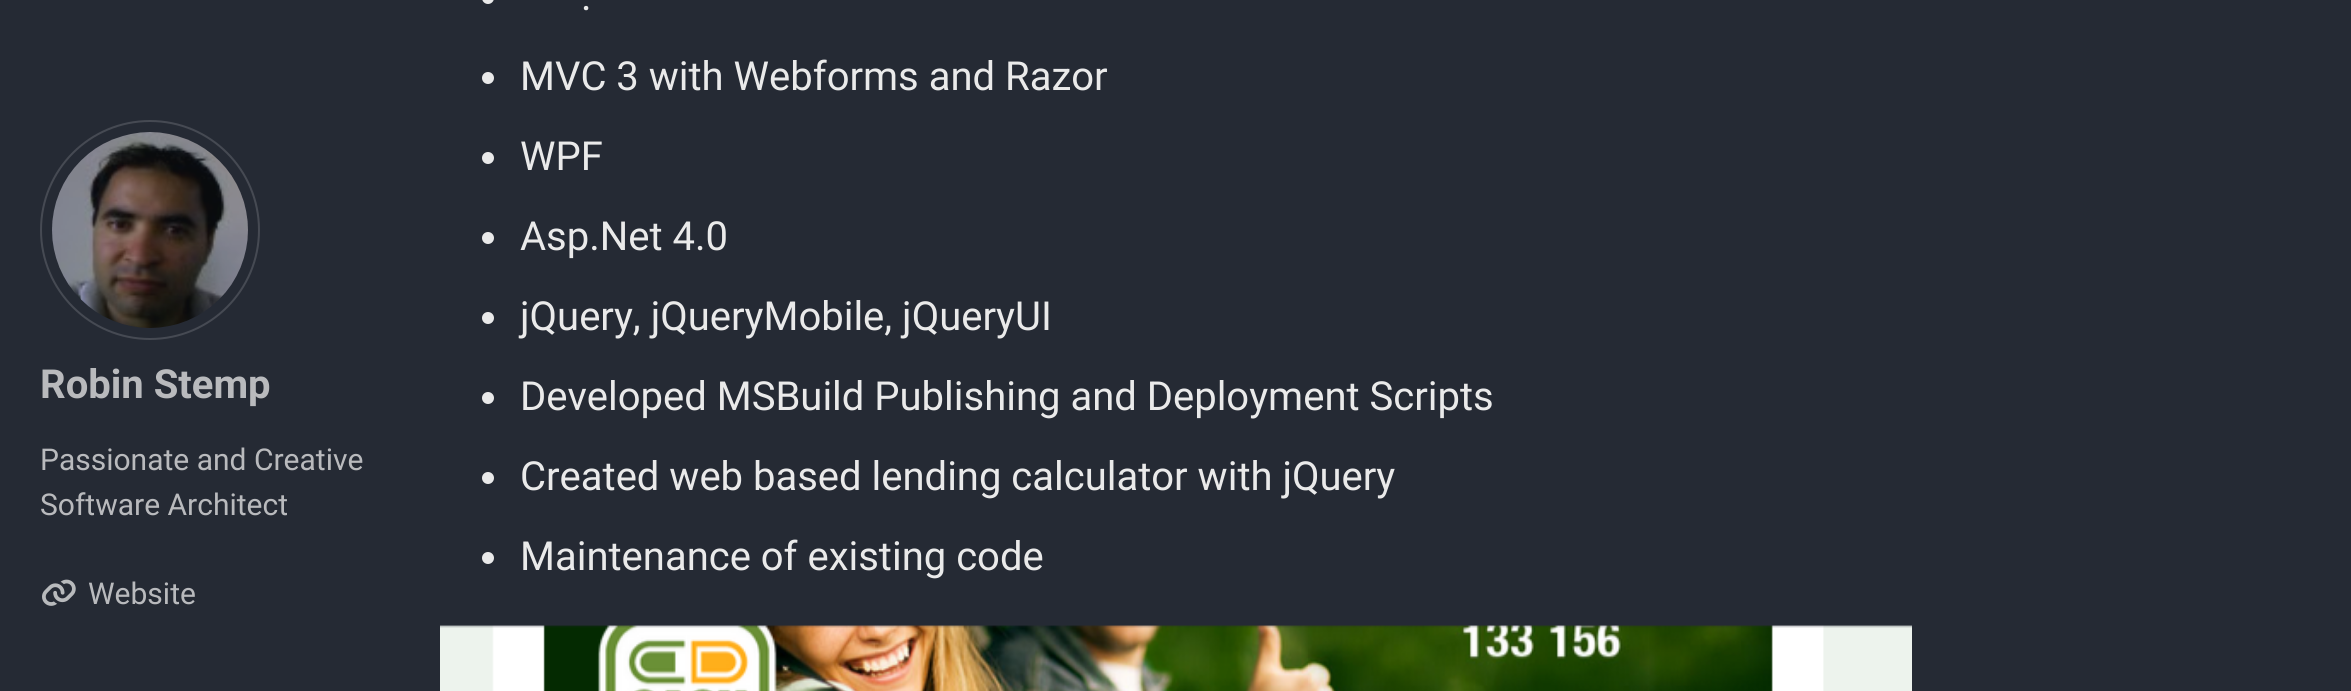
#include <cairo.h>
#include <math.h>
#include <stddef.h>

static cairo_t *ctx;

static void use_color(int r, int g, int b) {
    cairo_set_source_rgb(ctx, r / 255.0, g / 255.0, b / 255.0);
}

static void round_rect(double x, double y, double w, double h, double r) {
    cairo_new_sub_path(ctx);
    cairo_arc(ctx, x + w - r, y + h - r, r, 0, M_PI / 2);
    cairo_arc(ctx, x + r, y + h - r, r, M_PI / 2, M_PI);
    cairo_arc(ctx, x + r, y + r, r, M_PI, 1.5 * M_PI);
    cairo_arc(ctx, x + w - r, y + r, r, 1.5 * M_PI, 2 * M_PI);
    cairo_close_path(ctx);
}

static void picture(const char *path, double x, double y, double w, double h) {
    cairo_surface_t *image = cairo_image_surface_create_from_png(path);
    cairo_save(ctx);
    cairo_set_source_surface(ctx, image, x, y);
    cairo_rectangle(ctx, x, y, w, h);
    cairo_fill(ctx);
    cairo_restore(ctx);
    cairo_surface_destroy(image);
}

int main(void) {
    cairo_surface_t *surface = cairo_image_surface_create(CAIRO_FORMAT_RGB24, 2351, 691);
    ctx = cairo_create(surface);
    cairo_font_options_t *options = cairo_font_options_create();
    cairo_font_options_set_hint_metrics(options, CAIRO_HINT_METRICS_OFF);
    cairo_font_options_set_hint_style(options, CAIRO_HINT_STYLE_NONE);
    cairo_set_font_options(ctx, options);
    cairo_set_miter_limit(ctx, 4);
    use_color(37, 42, 52);
    cairo_paint(ctx);
    cairo_arc(ctx, 150, 230, 109, 0, 2 * M_PI);
    use_color(70, 74, 83);
    cairo_stroke(ctx);
    picture("img1.png", 52, 132, 196, 196);
    cairo_select_font_face(ctx, "Roboto", CAIRO_FONT_SLANT_NORMAL, CAIRO_FONT_WEIGHT_BOLD);
    cairo_set_font_size(ctx, 40);
    use_color(185, 186, 189);
    cairo_move_to(ctx, 40, 398);
    cairo_show_text(ctx, "Robin Stemp");
    cairo_select_font_face(ctx, "Roboto", CAIRO_FONT_SLANT_NORMAL, CAIRO_FONT_WEIGHT_NORMAL);
    cairo_set_font_size(ctx, 30);
    cairo_move_to(ctx, 40, 470);
    cairo_show_text(ctx, "Passionate and Creative");
    cairo_move_to(ctx, 40, 515);
    cairo_show_text(ctx, "Software Architect");
    picture("img2.png", 42, 579, 34, 27);
    cairo_move_to(ctx, 88, 604);
    cairo_show_text(ctx, "Website");
    use_color(234, 234, 234);
    round_rect(482, -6, 12, 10, 6);
    cairo_fill(ctx);
    cairo_set_font_size(ctx, 40);
    cairo_move_to(ctx, 581, 10);
    cairo_show_text(ctx, ".");
    cairo_new_path(ctx);
    cairo_arc(ctx, 488, 78, 6, 0, 2 * M_PI);
    cairo_fill(ctx);
    cairo_move_to(ctx, 520, 90);
    cairo_show_text(ctx, "MVC 3 with Webforms and Razor");
    cairo_new_path(ctx);
    cairo_arc(ctx, 488, 158, 6, 0, 2 * M_PI);
    cairo_fill(ctx);
    cairo_move_to(ctx, 520, 170);
    cairo_show_text(ctx, "WPF");
    cairo_new_path(ctx);
    cairo_arc(ctx, 488, 238, 6, 0, 2 * M_PI);
    cairo_fill(ctx);
    cairo_move_to(ctx, 520, 250);
    cairo_show_text(ctx, "Asp.Net 4.0");
    cairo_new_path(ctx);
    cairo_arc(ctx, 488, 318, 6, 0, 2 * M_PI);
    cairo_fill(ctx);
    cairo_move_to(ctx, 520, 330);
    cairo_show_text(ctx, "jQuery, jQueryMobile, jQueryUI");
    cairo_new_path(ctx);
    cairo_arc(ctx, 488, 398, 6, 0, 2 * M_PI);
    cairo_fill(ctx);
    cairo_move_to(ctx, 520, 410);
    cairo_show_text(ctx, "Developed MSBuild Publishing and Deployment Scripts");
    cairo_new_path(ctx);
    cairo_arc(ctx, 488, 478, 6, 0, 2 * M_PI);
    cairo_fill(ctx);
    cairo_move_to(ctx, 520, 490);
    cairo_show_text(ctx, "Created web based lending calculator with jQuery");
    cairo_new_path(ctx);
    cairo_arc(ctx, 488, 558, 6, 0, 2 * M_PI);
    cairo_fill(ctx);
    cairo_move_to(ctx, 520, 570);
    cairo_show_text(ctx, "Maintenance of existing code");
    picture("img3.png", 440, 625, 1472, 66);
    cairo_surface_write_to_png(surface, "result.png");
    cairo_font_options_destroy(options);
    cairo_destroy(ctx);
    cairo_surface_destroy(surface);
    return 0;
}
